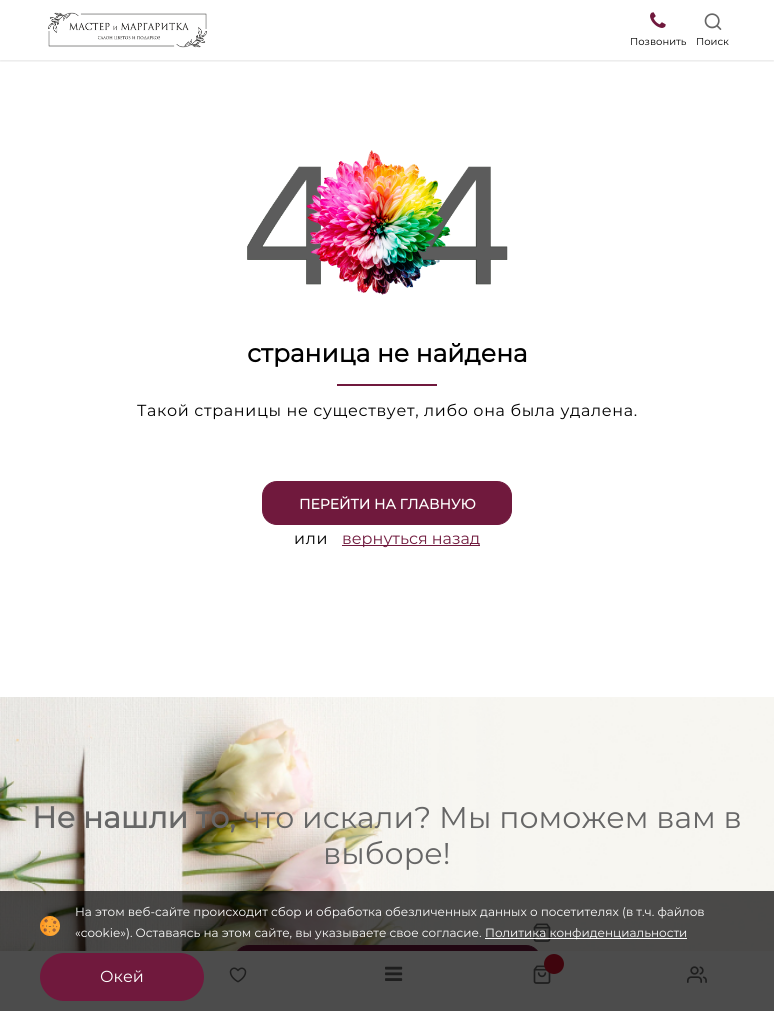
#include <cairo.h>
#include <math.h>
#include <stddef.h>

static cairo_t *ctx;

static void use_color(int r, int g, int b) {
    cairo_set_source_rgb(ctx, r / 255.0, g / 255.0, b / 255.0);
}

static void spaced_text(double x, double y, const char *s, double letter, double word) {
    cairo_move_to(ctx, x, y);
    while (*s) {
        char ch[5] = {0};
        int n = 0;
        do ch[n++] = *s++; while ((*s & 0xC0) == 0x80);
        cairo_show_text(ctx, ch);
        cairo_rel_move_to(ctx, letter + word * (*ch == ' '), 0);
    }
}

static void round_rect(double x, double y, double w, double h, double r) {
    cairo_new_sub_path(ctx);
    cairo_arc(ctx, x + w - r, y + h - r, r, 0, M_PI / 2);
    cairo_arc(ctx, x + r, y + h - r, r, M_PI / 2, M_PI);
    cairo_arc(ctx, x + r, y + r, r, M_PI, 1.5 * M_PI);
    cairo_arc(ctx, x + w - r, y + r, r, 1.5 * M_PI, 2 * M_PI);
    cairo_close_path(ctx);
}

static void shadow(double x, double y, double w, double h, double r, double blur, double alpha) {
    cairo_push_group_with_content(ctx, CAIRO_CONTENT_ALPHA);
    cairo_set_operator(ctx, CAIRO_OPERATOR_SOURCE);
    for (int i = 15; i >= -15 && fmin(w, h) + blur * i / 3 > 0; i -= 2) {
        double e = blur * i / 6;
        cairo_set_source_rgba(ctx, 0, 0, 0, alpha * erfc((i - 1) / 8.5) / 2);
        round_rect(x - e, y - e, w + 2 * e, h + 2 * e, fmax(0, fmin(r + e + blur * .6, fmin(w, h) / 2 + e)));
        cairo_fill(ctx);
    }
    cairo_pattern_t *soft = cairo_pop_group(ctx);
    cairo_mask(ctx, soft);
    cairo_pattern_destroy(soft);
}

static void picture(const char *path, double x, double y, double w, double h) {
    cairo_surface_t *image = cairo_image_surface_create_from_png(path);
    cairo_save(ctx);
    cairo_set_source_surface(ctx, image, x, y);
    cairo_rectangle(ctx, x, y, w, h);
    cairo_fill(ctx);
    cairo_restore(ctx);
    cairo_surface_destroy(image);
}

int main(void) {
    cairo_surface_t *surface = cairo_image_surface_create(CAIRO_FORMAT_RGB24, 774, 1011);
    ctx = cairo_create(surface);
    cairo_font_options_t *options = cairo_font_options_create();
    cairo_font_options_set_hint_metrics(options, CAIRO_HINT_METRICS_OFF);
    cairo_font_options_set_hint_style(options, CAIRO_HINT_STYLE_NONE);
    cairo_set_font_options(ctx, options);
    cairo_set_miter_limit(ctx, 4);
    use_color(255, 255, 255);
    cairo_paint(ctx);
    cairo_save(ctx);
    cairo_rectangle(ctx, 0, 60, 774, 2);
    cairo_clip(ctx);
    use_color(0, 0, 0);
    shadow(0, 1, 774, 60, 0, 1.5, 0.11);
    cairo_restore(ctx);
    picture("img1.png", 48, 12, 159, 36);
    picture("img2.png", 650, 12, 16, 16);
    cairo_select_font_face(ctx, "Montserrat", CAIRO_FONT_SLANT_NORMAL, CAIRO_FONT_WEIGHT_NORMAL);
    cairo_set_font_size(ctx, 10);
    use_color(0, 0, 0);
    cairo_move_to(ctx, 630, 45);
    cairo_show_text(ctx, "Позвонить");
    picture("img3.png", 704, 13, 18, 17);
    cairo_move_to(ctx, 696, 45);
    cairo_show_text(ctx, "Поиск");
    picture("img4.png", 247, 150, 261, 145);
    cairo_select_font_face(ctx, "Montserrat", CAIRO_FONT_SLANT_NORMAL, CAIRO_FONT_WEIGHT_BOLD);
    cairo_set_font_size(ctx, 25);
    cairo_move_to(ctx, 247, 362);
    cairo_show_text(ctx, "страница не найдена");
    use_color(112, 25, 61);
    cairo_rectangle(ctx, 337, 384, 100, 2);
    cairo_fill(ctx);
    cairo_select_font_face(ctx, "Montserrat", CAIRO_FONT_SLANT_NORMAL, CAIRO_FONT_WEIGHT_NORMAL);
    cairo_set_font_size(ctx, 16);
    use_color(0, 0, 0);
    spaced_text(137, 416, "Такой страницы не существует, либо она была удалена.", 0.65, 0);
    use_color(112, 25, 61);
    round_rect(262.5, 481.5, 249, 43, 14.5);
    cairo_fill_preserve(ctx);
    cairo_set_line_width(ctx, 1);
    cairo_stroke(ctx);
    cairo_select_font_face(ctx, "Montserrat", CAIRO_FONT_SLANT_NORMAL, CAIRO_FONT_WEIGHT_BOLD);
    cairo_set_font_size(ctx, 14);
    use_color(255, 255, 255);
    cairo_move_to(ctx, 299, 509);
    cairo_show_text(ctx, "ПЕРЕЙТИ НА ГЛАВНУЮ");
    cairo_select_font_face(ctx, "Montserrat", CAIRO_FONT_SLANT_NORMAL, CAIRO_FONT_WEIGHT_NORMAL);
    cairo_set_font_size(ctx, 16);
    use_color(0, 0, 0);
    spaced_text(294, 544, "или", 0.65, 0);
    use_color(112, 25, 61);
    cairo_rectangle(ctx, 342, 545, 138, 1);
    cairo_fill(ctx);
    cairo_move_to(ctx, 342, 544);
    cairo_show_text(ctx, "вернуться назад");
    picture("img5.png", 0, 697, 774, 254);
    cairo_select_font_face(ctx, "Montserrat", CAIRO_FONT_SLANT_NORMAL, CAIRO_FONT_WEIGHT_BOLD);
    cairo_set_font_size(ctx, 30);
    use_color(102, 102, 102);
    cairo_move_to(ctx, 32, 828);
    cairo_show_text(ctx, "Не нашли то,");
    cairo_select_font_face(ctx, "Montserrat", CAIRO_FONT_SLANT_NORMAL, CAIRO_FONT_WEIGHT_NORMAL);
    cairo_move_to(ctx, 243, 828);
    cairo_show_text(ctx, "что искали? Мы поможем вам в");
    cairo_move_to(ctx, 323, 864);
    cairo_show_text(ctx, "выборе!");
    use_color(112, 25, 61);
    round_rect(234.5, 945.5, 306, 43, 14.5);
    cairo_fill_preserve(ctx);
    cairo_stroke(ctx);
    use_color(255, 255, 255);
    cairo_rectangle(ctx, 234, 951, 307, 38);
    cairo_fill(ctx);
    picture("img7.png", 229, 967, 18, 16);
    picture("img8.png", 385, 966, 18, 15);
    picture("img9.png", 533, 923, 18, 19);
    picture("img10.png", 533, 965, 18, 19);
    use_color(211, 18, 42);
    cairo_arc(ctx, 554, 964, 10, 0, 2 * M_PI);
    cairo_fill(ctx);
    picture("img11.png", 687, 966, 20, 17);
    cairo_set_source_rgba(ctx, 0, 0, 0, 0.7);
    cairo_rectangle(ctx, 0, 891, 774, 120);
    cairo_fill(ctx);
    picture("img6.png", 40, 916, 20, 20);
    cairo_set_font_size(ctx, 12);
    use_color(255, 255, 255);
    cairo_move_to(ctx, 75, 916);
    cairo_show_text(ctx, "На этом веб-сайте происходит сбор и обработка обезличенных данных о посетителях (в т.ч. файлов");
    cairo_move_to(ctx, 75, 937);
    cairo_show_text(ctx, "«cookie»). Оставаясь на этом сайте, вы указываете свое согласие.");
    cairo_rectangle(ctx, 485, 938, 202, 1);
    cairo_fill(ctx);
    cairo_move_to(ctx, 485, 937);
    cairo_show_text(ctx, "Политика конфиденциальности");
    use_color(112, 25, 61);
    round_rect(40, 953, 164, 48, 24);
    cairo_fill(ctx);
    cairo_set_font_size(ctx, 16);
    use_color(255, 255, 255);
    cairo_move_to(ctx, 100, 982);
    cairo_show_text(ctx, "Окей");
    cairo_surface_write_to_png(surface, "result.png");
    cairo_font_options_destroy(options);
    cairo_destroy(ctx);
    cairo_surface_destroy(surface);
    return 0;
}
